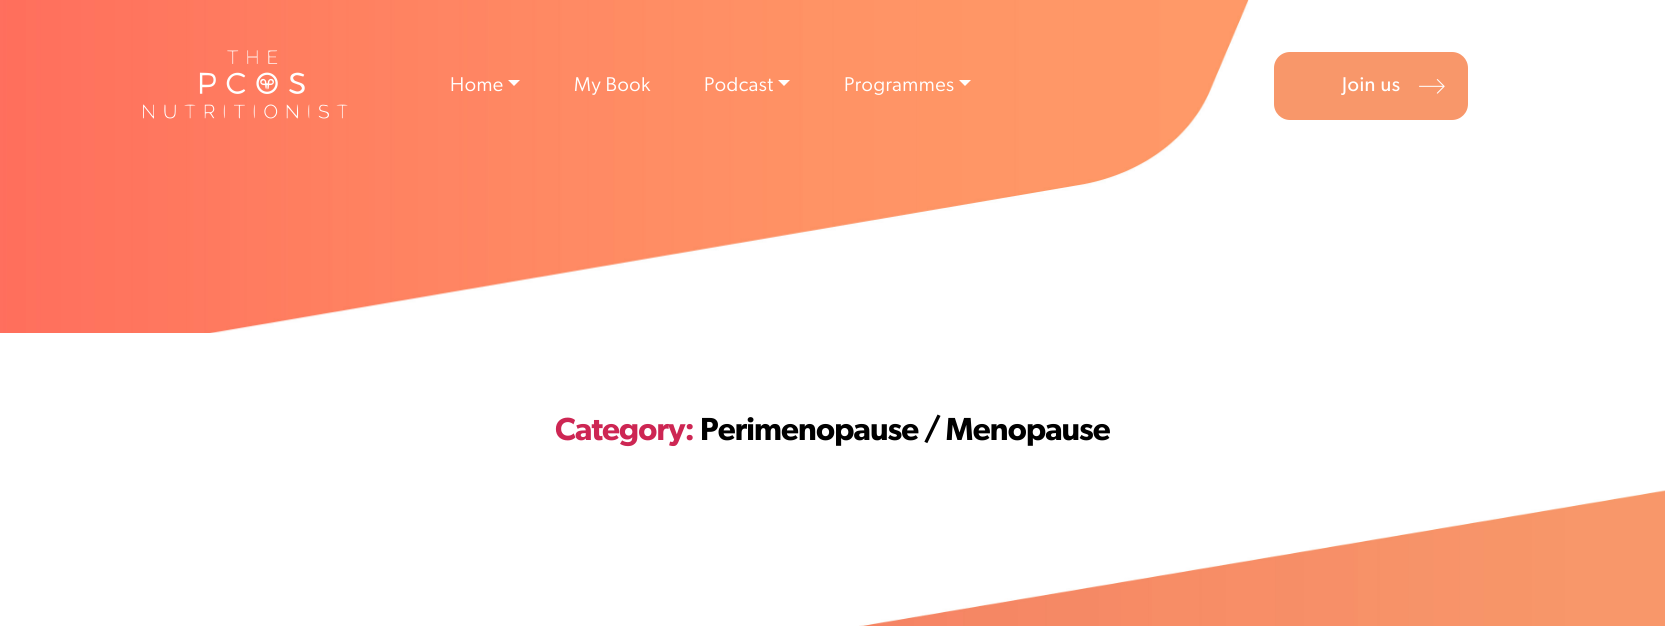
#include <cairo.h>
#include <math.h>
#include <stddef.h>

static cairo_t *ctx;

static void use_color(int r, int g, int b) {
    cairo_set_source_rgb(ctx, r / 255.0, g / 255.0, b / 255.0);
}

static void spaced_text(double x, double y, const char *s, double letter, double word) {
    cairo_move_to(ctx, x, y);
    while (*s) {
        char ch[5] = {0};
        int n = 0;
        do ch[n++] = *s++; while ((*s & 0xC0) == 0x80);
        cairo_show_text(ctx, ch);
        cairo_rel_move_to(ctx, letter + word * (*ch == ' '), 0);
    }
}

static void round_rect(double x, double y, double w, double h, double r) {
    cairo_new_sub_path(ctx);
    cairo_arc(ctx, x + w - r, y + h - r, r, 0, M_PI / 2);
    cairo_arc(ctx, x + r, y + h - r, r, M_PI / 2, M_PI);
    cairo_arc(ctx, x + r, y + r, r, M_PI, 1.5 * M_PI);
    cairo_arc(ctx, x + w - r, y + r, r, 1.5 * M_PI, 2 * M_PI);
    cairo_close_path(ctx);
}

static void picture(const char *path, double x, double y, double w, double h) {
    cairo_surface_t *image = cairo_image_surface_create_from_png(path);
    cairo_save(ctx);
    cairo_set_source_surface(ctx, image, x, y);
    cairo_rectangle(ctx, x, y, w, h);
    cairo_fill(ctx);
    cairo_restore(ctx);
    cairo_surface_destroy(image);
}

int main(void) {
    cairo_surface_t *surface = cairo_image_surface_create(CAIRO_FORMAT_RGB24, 1665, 626);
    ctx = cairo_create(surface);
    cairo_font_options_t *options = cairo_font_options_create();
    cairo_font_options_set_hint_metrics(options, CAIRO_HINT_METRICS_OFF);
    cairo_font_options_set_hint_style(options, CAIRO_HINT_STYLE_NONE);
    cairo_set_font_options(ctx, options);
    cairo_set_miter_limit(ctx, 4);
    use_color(255, 255, 255);
    cairo_paint(ctx);
    picture("img1.png", 0, 0, 1249, 333);
    picture("img2.png", 143, 50, 205, 69);
    cairo_select_font_face(ctx, "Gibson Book", CAIRO_FONT_SLANT_NORMAL, CAIRO_FONT_WEIGHT_NORMAL);
    cairo_set_font_size(ctx, 20);
    use_color(255, 255, 255);
    spaced_text(450, 91, "Home", 0.5, 0);
    cairo_new_path(ctx);
    cairo_move_to(ctx, 508, 80);
    cairo_line_to(ctx, 520, 80);
    cairo_line_to(ctx, 514, 86);
    cairo_close_path(ctx);
    cairo_fill(ctx);
    spaced_text(574, 91, "My Book", 0.5, 0);
    spaced_text(704, 91, "Podcast", 0.5, 0);
    cairo_new_path(ctx);
    cairo_move_to(ctx, 778, 80);
    cairo_line_to(ctx, 790, 80);
    cairo_line_to(ctx, 784, 86);
    cairo_close_path(ctx);
    cairo_fill(ctx);
    spaced_text(844, 91, "Programmes", 0.5, 0);
    cairo_new_path(ctx);
    cairo_move_to(ctx, 959, 80);
    cairo_line_to(ctx, 971, 80);
    cairo_line_to(ctx, 965, 86);
    cairo_close_path(ctx);
    cairo_fill(ctx);
    use_color(248, 151, 106);
    round_rect(1274, 52, 194, 68, 16);
    cairo_fill(ctx);
    picture("img3.png", 1419, 79, 26, 15);
    cairo_select_font_face(ctx, "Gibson", CAIRO_FONT_SLANT_NORMAL, CAIRO_FONT_WEIGHT_NORMAL);
    use_color(255, 255, 255);
    spaced_text(1342, 91, "Join us", 0.5, 0);
    cairo_select_font_face(ctx, "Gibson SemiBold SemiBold", CAIRO_FONT_SLANT_NORMAL, CAIRO_FONT_WEIGHT_NORMAL);
    cairo_set_font_size(ctx, 32);
    use_color(205, 38, 83);
    spaced_text(555, 440, "Category:", -0.85, 0);
    use_color(0, 0, 0);
    spaced_text(700, 440, "Perimenopause / Menopause", -0.85, 0);
    picture("img4.png", 859, 490, 806, 136);
    cairo_surface_write_to_png(surface, "result.png");
    cairo_font_options_destroy(options);
    cairo_destroy(ctx);
    cairo_surface_destroy(surface);
    return 0;
}
